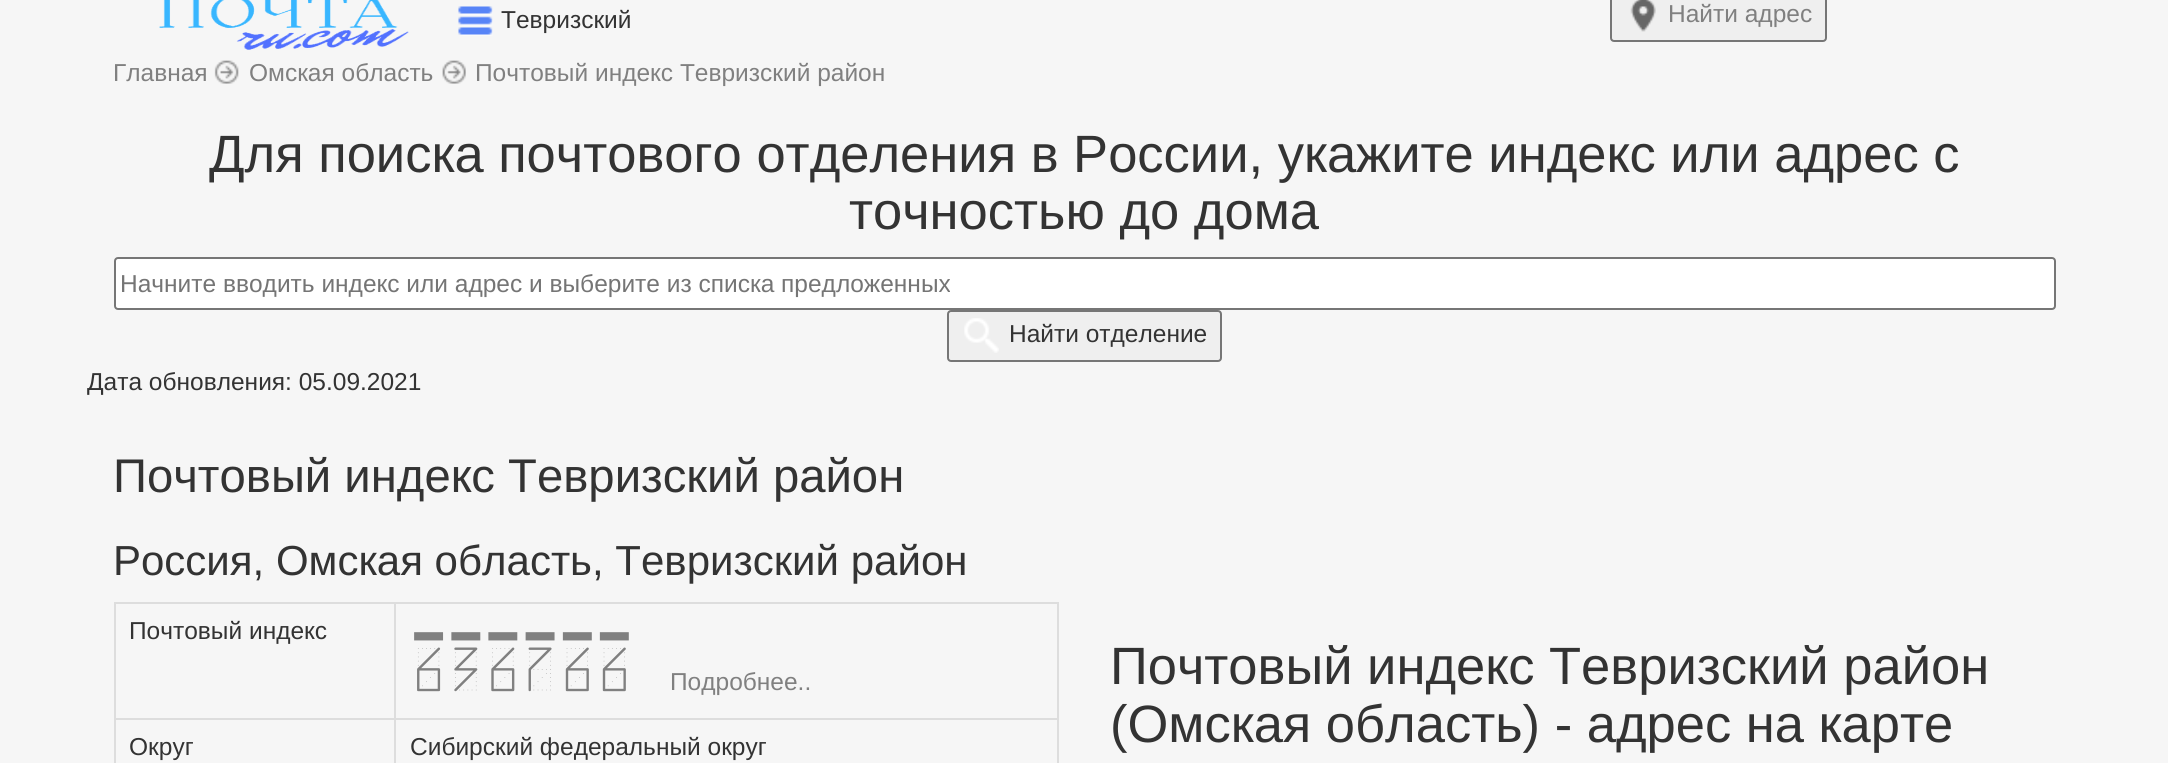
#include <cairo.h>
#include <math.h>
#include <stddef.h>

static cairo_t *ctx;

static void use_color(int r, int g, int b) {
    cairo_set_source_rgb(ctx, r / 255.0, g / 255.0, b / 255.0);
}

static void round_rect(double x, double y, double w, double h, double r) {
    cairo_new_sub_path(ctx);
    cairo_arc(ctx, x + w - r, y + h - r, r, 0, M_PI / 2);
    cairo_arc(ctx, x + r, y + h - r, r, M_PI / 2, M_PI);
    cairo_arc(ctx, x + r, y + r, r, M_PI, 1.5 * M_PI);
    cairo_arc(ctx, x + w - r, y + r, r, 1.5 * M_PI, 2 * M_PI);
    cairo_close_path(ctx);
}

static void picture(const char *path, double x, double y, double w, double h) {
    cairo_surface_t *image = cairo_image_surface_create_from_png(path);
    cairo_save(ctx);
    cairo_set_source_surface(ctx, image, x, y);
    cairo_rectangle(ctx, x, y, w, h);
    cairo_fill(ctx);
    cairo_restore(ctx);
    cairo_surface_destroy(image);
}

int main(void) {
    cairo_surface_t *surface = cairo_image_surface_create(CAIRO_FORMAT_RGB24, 2168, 763);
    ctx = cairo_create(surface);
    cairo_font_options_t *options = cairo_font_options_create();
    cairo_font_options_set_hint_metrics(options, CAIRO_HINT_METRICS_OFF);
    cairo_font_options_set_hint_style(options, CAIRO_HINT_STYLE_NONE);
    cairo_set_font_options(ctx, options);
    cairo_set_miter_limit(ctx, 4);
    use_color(246, 246, 246);
    cairo_paint(ctx);
    picture("img1.png", 159, 0, 250, 50);
    picture("img2.png", 458, 6, 35, 30);
    cairo_select_font_face(ctx, "Liberation Sans", CAIRO_FONT_SLANT_NORMAL, CAIRO_FONT_WEIGHT_NORMAL);
    cairo_set_font_size(ctx, 24.5);
    use_color(51, 51, 51);
    cairo_move_to(ctx, 501, 28);
    cairo_show_text(ctx, "Тевризский");
    use_color(239, 239, 239);
    round_rect(1611, -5, 215, 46, 3);
    cairo_fill_preserve(ctx);
    use_color(118, 118, 118);
    cairo_stroke(ctx);
    picture("img3.png", 1630, 0, 26, 32);
    use_color(128, 128, 128);
    cairo_move_to(ctx, 1668, 22);
    cairo_show_text(ctx, "Найти адрес");
    cairo_move_to(ctx, 113, 81);
    cairo_show_text(ctx, "Главная");
    picture("img4.png", 214, 60, 25, 24);
    cairo_move_to(ctx, 249, 81);
    cairo_show_text(ctx, "Омская область");
    picture("img5.png", 442, 60, 24, 24);
    cairo_move_to(ctx, 475, 81);
    cairo_show_text(ctx, "Почтовый индекс Тевризский район");
    cairo_set_font_size(ctx, 52.5);
    use_color(51, 51, 51);
    cairo_move_to(ctx, 209, 172);
    cairo_show_text(ctx, "Для поиска почтового отделения в России, укажите индекс или адрес с");
    cairo_move_to(ctx, 849, 229);
    cairo_show_text(ctx, "точностью до дома");
    use_color(255, 255, 255);
    round_rect(115, 258, 1940, 51, 3);
    cairo_fill_preserve(ctx);
    use_color(118, 118, 118);
    cairo_stroke(ctx);
    cairo_set_font_size(ctx, 24.5);
    use_color(117, 117, 117);
    cairo_move_to(ctx, 120, 292);
    cairo_show_text(ctx, "Начните вводить индекс или адрес и выберите из списка предложенных");
    use_color(239, 239, 239);
    round_rect(948, 311, 273, 50, 3);
    cairo_fill_preserve(ctx);
    use_color(118, 118, 118);
    cairo_stroke(ctx);
    picture("img6.png", 964, 318, 35, 35);
    use_color(51, 51, 51);
    cairo_move_to(ctx, 1009, 342);
    cairo_show_text(ctx, "Найти отделение");
    cairo_move_to(ctx, 87, 390);
    cairo_show_text(ctx, "Дата обновления: 05.09.2021");
    cairo_set_font_size(ctx, 47.25);
    cairo_move_to(ctx, 113, 492);
    cairo_show_text(ctx, "Почтовый индекс Тевризский район");
    cairo_set_font_size(ctx, 42);
    cairo_move_to(ctx, 113, 575);
    cairo_show_text(ctx, "Россия, Омская область, Тевризский район");
    use_color(221, 221, 221);
    cairo_rectangle(ctx, 114, 602, 945, 2);
    cairo_fill(ctx);
    cairo_rectangle(ctx, 1057, 602, 2, 161);
    cairo_fill(ctx);
    cairo_rectangle(ctx, 114, 602, 2, 161);
    cairo_fill(ctx);
    cairo_set_font_size(ctx, 24.5);
    use_color(51, 51, 51);
    cairo_move_to(ctx, 129, 639);
    cairo_show_text(ctx, "Почтовый индекс");
    use_color(221, 221, 221);
    cairo_rectangle(ctx, 394, 718, 665, 2);
    cairo_fill(ctx);
    cairo_rectangle(ctx, 394, 718, 2, 45);
    cairo_fill(ctx);
    cairo_rectangle(ctx, 114, 718, 282, 2);
    cairo_fill(ctx);
    cairo_rectangle(ctx, 394, 602, 2, 117);
    cairo_fill(ctx);
    cairo_select_font_face(ctx, "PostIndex", CAIRO_FONT_SLANT_NORMAL, CAIRO_FONT_WEIGHT_NORMAL);
    cairo_set_font_size(ctx, 70);
    use_color(128, 128, 128);
    cairo_move_to(ctx, 410, 690);
    cairo_show_text(ctx, "636766");
    cairo_select_font_face(ctx, "Liberation Sans", CAIRO_FONT_SLANT_NORMAL, CAIRO_FONT_WEIGHT_NORMAL);
    cairo_set_font_size(ctx, 24.5);
    cairo_move_to(ctx, 670, 690);
    cairo_show_text(ctx, "Подробнее..");
    use_color(51, 51, 51);
    cairo_move_to(ctx, 129, 755);
    cairo_show_text(ctx, "Округ");
    cairo_move_to(ctx, 410, 755);
    cairo_show_text(ctx, "Сибирский федеральный округ");
    cairo_set_font_size(ctx, 52.5);
    cairo_move_to(ctx, 1110, 684);
    cairo_show_text(ctx, "Почтовый индекс Тевризский район");
    cairo_move_to(ctx, 1110, 742);
    cairo_show_text(ctx, "(Омская область) - адрес на карте");
    cairo_surface_write_to_png(surface, "result.png");
    cairo_font_options_destroy(options);
    cairo_destroy(ctx);
    cairo_surface_destroy(surface);
    return 0;
}
